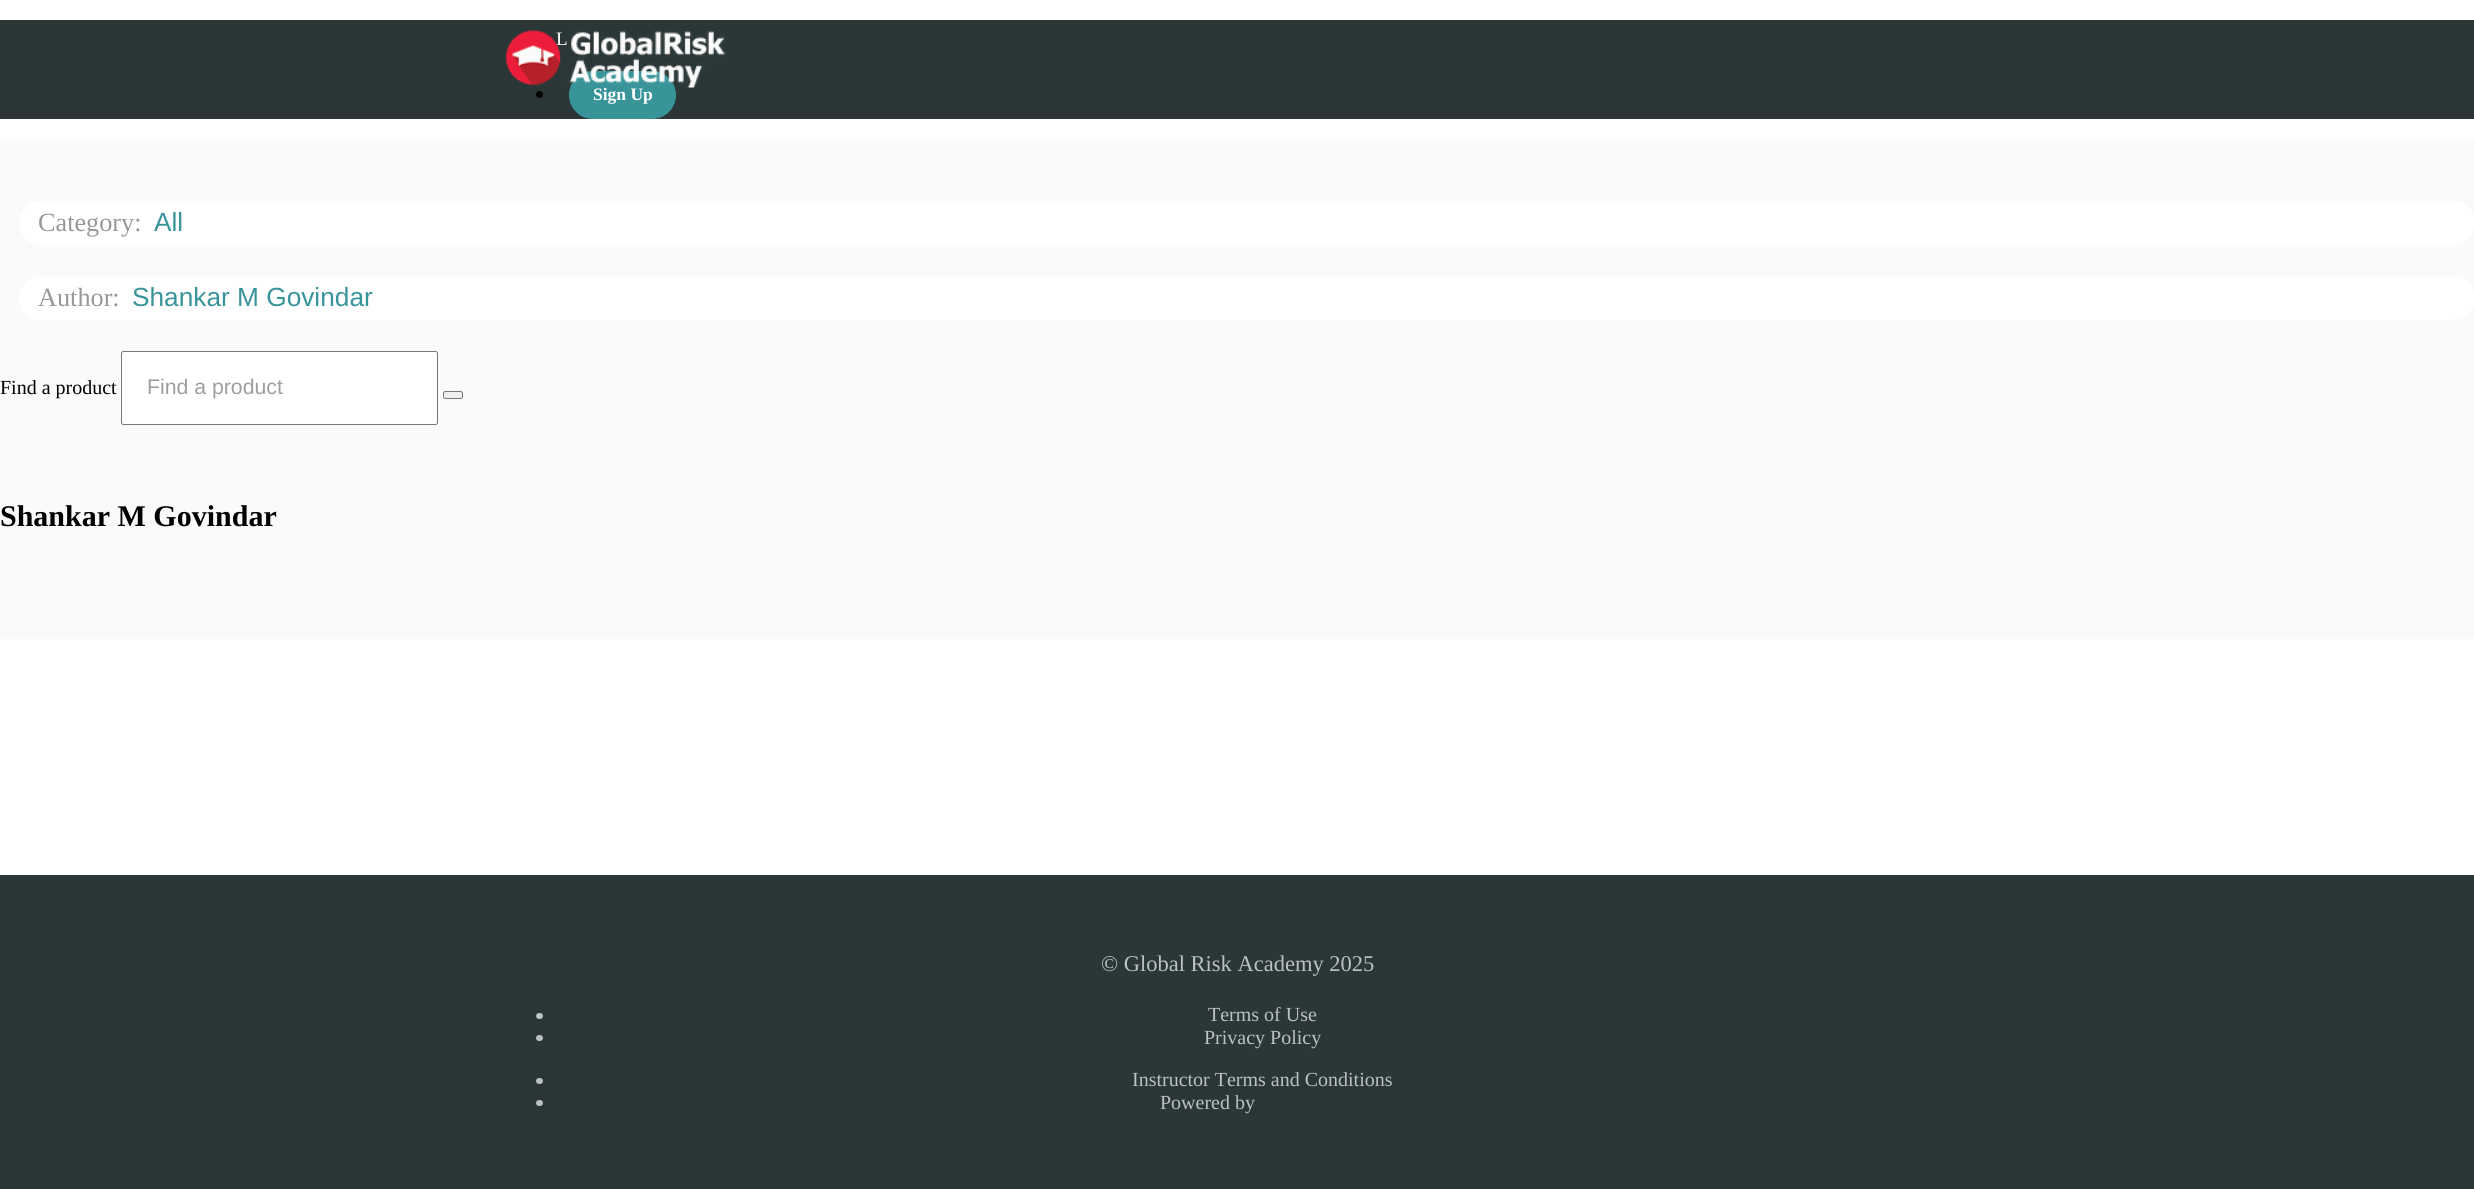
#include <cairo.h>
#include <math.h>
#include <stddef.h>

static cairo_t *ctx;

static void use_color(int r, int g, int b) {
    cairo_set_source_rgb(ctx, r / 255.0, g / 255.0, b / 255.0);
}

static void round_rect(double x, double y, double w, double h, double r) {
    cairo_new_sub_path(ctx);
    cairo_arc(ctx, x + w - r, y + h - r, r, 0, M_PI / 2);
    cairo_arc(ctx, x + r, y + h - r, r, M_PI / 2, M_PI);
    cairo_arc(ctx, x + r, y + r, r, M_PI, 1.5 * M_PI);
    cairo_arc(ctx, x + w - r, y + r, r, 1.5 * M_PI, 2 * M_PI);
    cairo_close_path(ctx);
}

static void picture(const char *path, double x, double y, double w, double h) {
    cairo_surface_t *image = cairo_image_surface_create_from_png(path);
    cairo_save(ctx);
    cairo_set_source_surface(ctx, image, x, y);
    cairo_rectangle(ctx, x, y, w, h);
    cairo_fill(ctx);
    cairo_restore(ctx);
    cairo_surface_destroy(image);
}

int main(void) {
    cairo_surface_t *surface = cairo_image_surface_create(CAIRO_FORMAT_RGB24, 2474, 1189);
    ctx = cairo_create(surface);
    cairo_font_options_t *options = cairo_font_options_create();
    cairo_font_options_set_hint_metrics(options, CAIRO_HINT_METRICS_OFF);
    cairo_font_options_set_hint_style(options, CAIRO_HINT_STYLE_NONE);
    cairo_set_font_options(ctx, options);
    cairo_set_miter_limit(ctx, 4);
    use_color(255, 255, 255);
    cairo_paint(ctx);
    use_color(43, 54, 54);
    cairo_rectangle(ctx, 0, 20, 2474, 99);
    cairo_fill(ctx);
    cairo_select_font_face(ctx, "Liberation Serif", CAIRO_FONT_SLANT_NORMAL, CAIRO_FONT_WEIGHT_NORMAL);
    cairo_set_font_size(ctx, 19);
    use_color(255, 255, 255);
    cairo_move_to(ctx, 556, 45);
    cairo_show_text(ctx, "L");
    use_color(57, 148, 154);
    round_rect(569.5, 71.5, 106, 47, 23.5);
    cairo_fill_preserve(ctx);
    cairo_set_line_width(ctx, 1);
    cairo_stroke(ctx);
    cairo_select_font_face(ctx, "Liberation Serif", CAIRO_FONT_SLANT_NORMAL, CAIRO_FONT_WEIGHT_BOLD);
    cairo_set_font_size(ctx, 17.5);
    use_color(255, 255, 255);
    cairo_move_to(ctx, 593, 100);
    cairo_show_text(ctx, "Sign Up");
    picture("img1.png", 506, 29, 220, 59);
    use_color(0, 0, 0);
    cairo_arc(ctx, 539.5, 94.5, 3.5, 0, 2 * M_PI);
    cairo_fill(ctx);
    use_color(250, 250, 250);
    cairo_rectangle(ctx, 0, 139, 2474, 500);
    cairo_fill(ctx);
    use_color(255, 255, 255);
    round_rect(19, 201, 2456, 44, 22);
    cairo_fill(ctx);
    cairo_select_font_face(ctx, "Liberation Serif", CAIRO_FONT_SLANT_NORMAL, CAIRO_FONT_WEIGHT_NORMAL);
    cairo_set_font_size(ctx, 26.25);
    use_color(152, 152, 152);
    cairo_move_to(ctx, 38, 231);
    cairo_show_text(ctx, "Category:");
    cairo_select_font_face(ctx, "Liberation Sans", CAIRO_FONT_SLANT_NORMAL, CAIRO_FONT_WEIGHT_NORMAL);
    use_color(57, 148, 154);
    cairo_move_to(ctx, 154, 231);
    cairo_show_text(ctx, "All");
    use_color(255, 255, 255);
    round_rect(19, 276, 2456, 44, 22);
    cairo_fill(ctx);
    cairo_select_font_face(ctx, "Liberation Serif", CAIRO_FONT_SLANT_NORMAL, CAIRO_FONT_WEIGHT_NORMAL);
    use_color(152, 152, 152);
    cairo_move_to(ctx, 38, 306);
    cairo_show_text(ctx, "Author:");
    cairo_select_font_face(ctx, "Liberation Sans", CAIRO_FONT_SLANT_NORMAL, CAIRO_FONT_WEIGHT_NORMAL);
    use_color(57, 148, 154);
    cairo_move_to(ctx, 132, 306);
    cairo_show_text(ctx, "Shankar M Govindar");
    cairo_select_font_face(ctx, "Liberation Serif", CAIRO_FONT_SLANT_NORMAL, CAIRO_FONT_WEIGHT_NORMAL);
    cairo_set_font_size(ctx, 20);
    use_color(0, 0, 0);
    cairo_move_to(ctx, 0, 394);
    cairo_show_text(ctx, "Find a product");
    use_color(255, 255, 255);
    round_rect(121.5, 351.5, 316, 73, 2);
    cairo_fill_preserve(ctx);
    use_color(118, 118, 118);
    cairo_stroke(ctx);
    cairo_select_font_face(ctx, "Liberation Sans", CAIRO_FONT_SLANT_NORMAL, CAIRO_FONT_WEIGHT_NORMAL);
    cairo_set_font_size(ctx, 21.25);
    use_color(158, 158, 158);
    cairo_move_to(ctx, 147, 394);
    cairo_show_text(ctx, "Find a product");
    use_color(239, 239, 239);
    round_rect(443.5, 391.5, 19, 7, 2);
    cairo_fill_preserve(ctx);
    use_color(118, 118, 118);
    cairo_stroke(ctx);
    cairo_select_font_face(ctx, "Liberation Serif", CAIRO_FONT_SLANT_NORMAL, CAIRO_FONT_WEIGHT_BOLD);
    cairo_set_font_size(ctx, 30);
    use_color(0, 0, 0);
    cairo_move_to(ctx, 0, 526);
    cairo_show_text(ctx, "Shankar M Govindar");
    use_color(43, 54, 54);
    cairo_rectangle(ctx, 0, 875, 2474, 314);
    cairo_fill(ctx);
    cairo_select_font_face(ctx, "Liberation Serif", CAIRO_FONT_SLANT_NORMAL, CAIRO_FONT_WEIGHT_NORMAL);
    cairo_set_font_size(ctx, 22.5);
    use_color(186, 193, 199);
    cairo_move_to(ctx, 1101, 971);
    cairo_show_text(ctx, "© Global Risk Academy 2025");
    round_rect(536, 1013, 7, 6, 3);
    cairo_fill(ctx);
    cairo_set_font_size(ctx, 20);
    cairo_move_to(ctx, 1208, 1021);
    cairo_show_text(ctx, "Terms of Use");
    round_rect(536, 1035, 7, 6, 3);
    cairo_fill(ctx);
    cairo_move_to(ctx, 1204, 1044);
    cairo_show_text(ctx, "Privacy Policy");
    round_rect(536, 1078, 7, 6, 3);
    cairo_fill(ctx);
    cairo_move_to(ctx, 1132, 1086);
    cairo_show_text(ctx, "Instructor Terms and Conditions");
    round_rect(536, 1100, 7, 6, 3);
    cairo_fill(ctx);
    cairo_move_to(ctx, 1160, 1109);
    cairo_show_text(ctx, "Powered by");
    cairo_surface_write_to_png(surface, "result.png");
    cairo_font_options_destroy(options);
    cairo_destroy(ctx);
    cairo_surface_destroy(surface);
    return 0;
}
